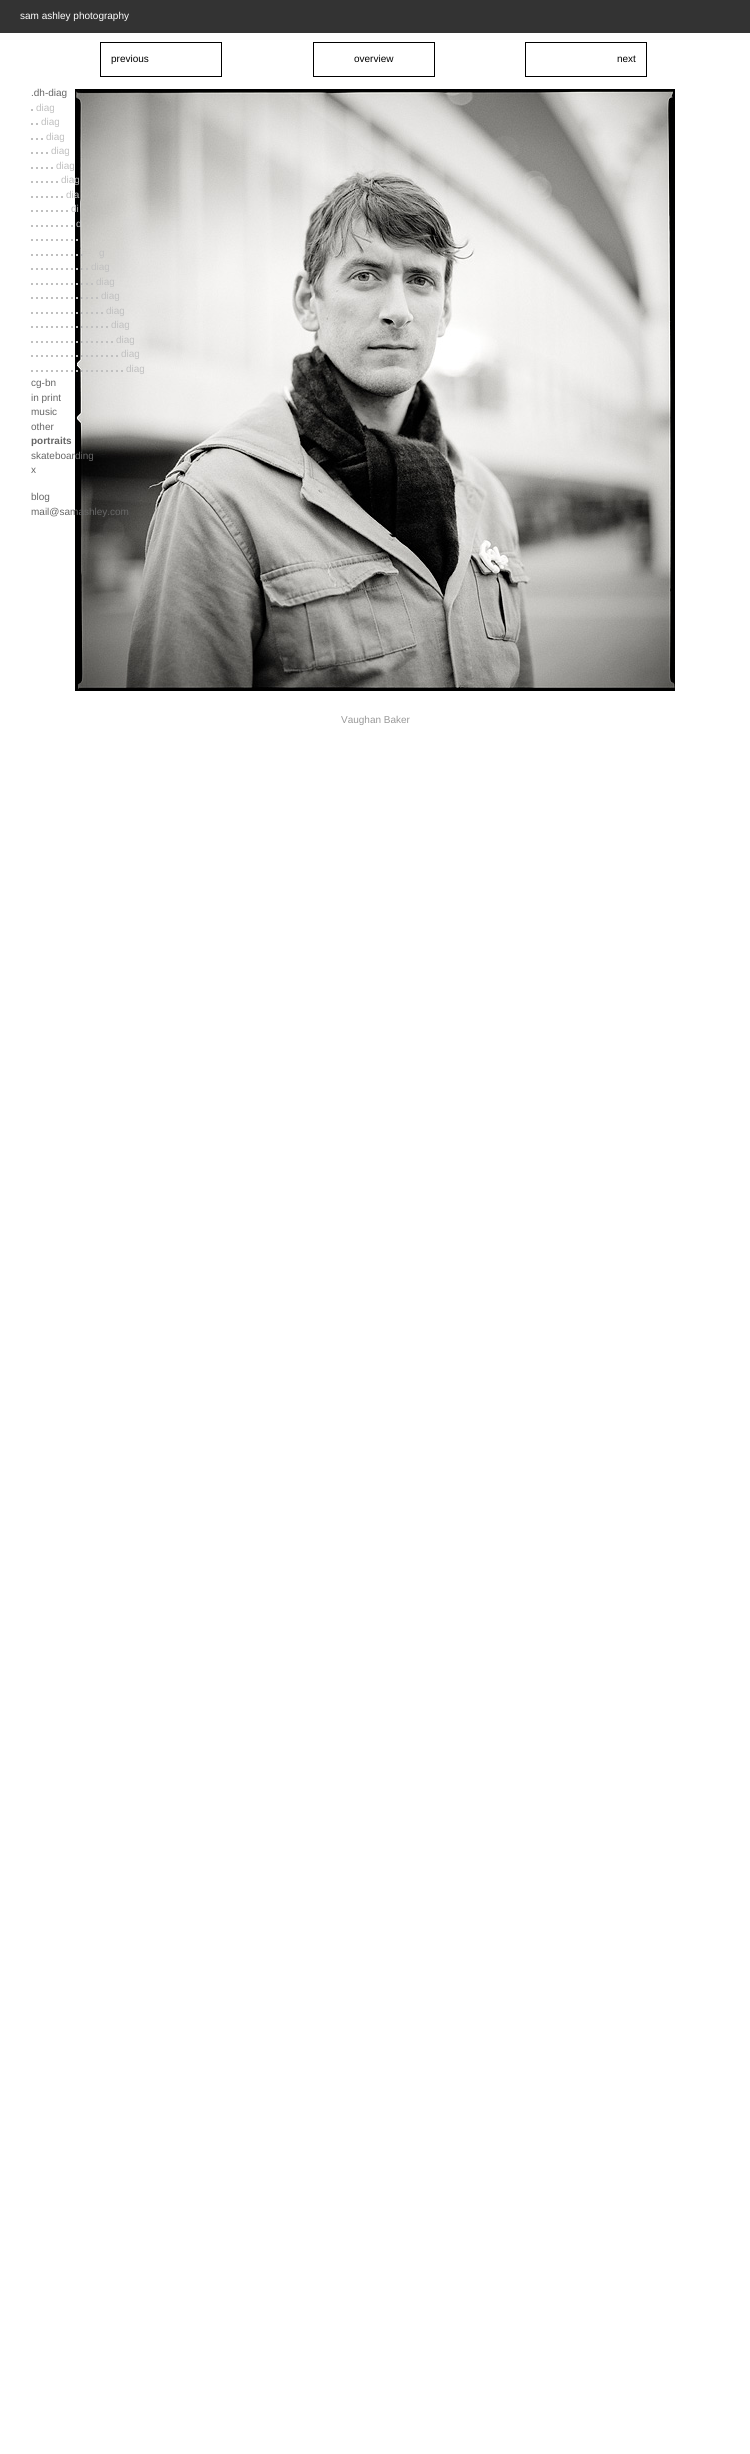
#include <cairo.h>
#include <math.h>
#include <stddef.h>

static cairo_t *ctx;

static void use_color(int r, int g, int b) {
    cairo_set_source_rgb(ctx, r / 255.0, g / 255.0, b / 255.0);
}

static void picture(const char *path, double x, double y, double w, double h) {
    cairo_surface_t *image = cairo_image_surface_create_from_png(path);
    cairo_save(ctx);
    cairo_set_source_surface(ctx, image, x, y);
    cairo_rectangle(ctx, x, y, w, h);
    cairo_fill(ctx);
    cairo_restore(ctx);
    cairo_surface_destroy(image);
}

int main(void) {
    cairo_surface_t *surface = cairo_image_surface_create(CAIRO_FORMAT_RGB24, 750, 2454);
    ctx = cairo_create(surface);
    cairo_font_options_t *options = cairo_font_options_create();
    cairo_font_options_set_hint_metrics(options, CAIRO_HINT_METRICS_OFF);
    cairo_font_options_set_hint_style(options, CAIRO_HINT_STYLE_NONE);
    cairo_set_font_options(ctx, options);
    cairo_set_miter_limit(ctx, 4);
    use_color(255, 255, 255);
    cairo_paint(ctx);
    use_color(51, 51, 51);
    cairo_rectangle(ctx, 0, 0, 750, 33);
    cairo_fill(ctx);
    cairo_select_font_face(ctx, "Liberation Sans", CAIRO_FONT_SLANT_NORMAL, CAIRO_FONT_WEIGHT_NORMAL);
    cairo_set_font_size(ctx, 10);
    use_color(255, 255, 255);
    cairo_move_to(ctx, 20, 19);
    cairo_show_text(ctx, "sam ashley photography");
    cairo_rectangle(ctx, 100.5, 42.5, 121, 34);
    use_color(0, 0, 0);
    cairo_set_line_width(ctx, 1);
    cairo_stroke(ctx);
    cairo_move_to(ctx, 111, 62);
    cairo_show_text(ctx, "previous");
    cairo_rectangle(ctx, 313.5, 42.5, 121, 34);
    cairo_stroke(ctx);
    cairo_move_to(ctx, 354, 62);
    cairo_show_text(ctx, "overview");
    cairo_rectangle(ctx, 525.5, 42.5, 121, 34);
    cairo_stroke(ctx);
    cairo_move_to(ctx, 617, 62);
    cairo_show_text(ctx, "next");
    use_color(102, 102, 102);
    cairo_move_to(ctx, 31, 96);
    cairo_show_text(ctx, ".dh-diag");
    use_color(192, 192, 192);
    cairo_rectangle(ctx, 31, 109, 2, 2);
    cairo_fill(ctx);
    cairo_move_to(ctx, 36, 111);
    cairo_show_text(ctx, "diag");
    cairo_rectangle(ctx, 31, 123, 2, 2);
    cairo_fill(ctx);
    cairo_rectangle(ctx, 36, 123, 2, 2);
    cairo_fill(ctx);
    cairo_move_to(ctx, 41, 125);
    cairo_show_text(ctx, "diag");
    cairo_rectangle(ctx, 31, 138, 2, 2);
    cairo_fill(ctx);
    cairo_rectangle(ctx, 36, 138, 2, 2);
    cairo_fill(ctx);
    cairo_rectangle(ctx, 41, 138, 2, 2);
    cairo_fill(ctx);
    cairo_move_to(ctx, 46, 140);
    cairo_show_text(ctx, "diag");
    cairo_rectangle(ctx, 31, 152, 2, 2);
    cairo_fill(ctx);
    cairo_rectangle(ctx, 36, 152, 2, 2);
    cairo_fill(ctx);
    cairo_rectangle(ctx, 41, 152, 2, 2);
    cairo_fill(ctx);
    cairo_rectangle(ctx, 46, 152, 2, 2);
    cairo_fill(ctx);
    cairo_move_to(ctx, 51, 154);
    cairo_show_text(ctx, "diag");
    cairo_rectangle(ctx, 31, 167, 2, 2);
    cairo_fill(ctx);
    cairo_rectangle(ctx, 36, 167, 2, 2);
    cairo_fill(ctx);
    cairo_rectangle(ctx, 41, 167, 2, 2);
    cairo_fill(ctx);
    cairo_rectangle(ctx, 46, 167, 2, 2);
    cairo_fill(ctx);
    cairo_rectangle(ctx, 51, 167, 2, 2);
    cairo_fill(ctx);
    cairo_move_to(ctx, 56, 169);
    cairo_show_text(ctx, "diag");
    cairo_rectangle(ctx, 31, 181, 2, 2);
    cairo_fill(ctx);
    cairo_rectangle(ctx, 36, 181, 2, 2);
    cairo_fill(ctx);
    cairo_rectangle(ctx, 41, 181, 2, 2);
    cairo_fill(ctx);
    cairo_rectangle(ctx, 46, 181, 2, 2);
    cairo_fill(ctx);
    cairo_rectangle(ctx, 51, 181, 2, 2);
    cairo_fill(ctx);
    cairo_rectangle(ctx, 56, 181, 2, 2);
    cairo_fill(ctx);
    picture("img1.png", 75, 89, 600, 602);
    cairo_move_to(ctx, 61, 183);
    cairo_show_text(ctx, "diag");
    cairo_rectangle(ctx, 31, 196, 2, 2);
    cairo_fill(ctx);
    cairo_rectangle(ctx, 36, 196, 2, 2);
    cairo_fill(ctx);
    cairo_rectangle(ctx, 41, 196, 2, 2);
    cairo_fill(ctx);
    cairo_rectangle(ctx, 46, 196, 2, 2);
    cairo_fill(ctx);
    cairo_rectangle(ctx, 51, 196, 2, 2);
    cairo_fill(ctx);
    cairo_rectangle(ctx, 56, 196, 2, 2);
    cairo_fill(ctx);
    cairo_rectangle(ctx, 61, 196, 2, 2);
    cairo_fill(ctx);
    cairo_move_to(ctx, 66, 198);
    cairo_show_text(ctx, "dia");
    cairo_rectangle(ctx, 31, 210, 2, 2);
    cairo_fill(ctx);
    cairo_rectangle(ctx, 36, 210, 2, 2);
    cairo_fill(ctx);
    cairo_rectangle(ctx, 41, 210, 2, 2);
    cairo_fill(ctx);
    cairo_rectangle(ctx, 46, 210, 2, 2);
    cairo_fill(ctx);
    cairo_rectangle(ctx, 51, 210, 2, 2);
    cairo_fill(ctx);
    cairo_rectangle(ctx, 56, 210, 2, 2);
    cairo_fill(ctx);
    cairo_rectangle(ctx, 61, 210, 2, 2);
    cairo_fill(ctx);
    cairo_rectangle(ctx, 66, 210, 2, 2);
    cairo_fill(ctx);
    cairo_move_to(ctx, 71, 212);
    cairo_show_text(ctx, "di");
    cairo_rectangle(ctx, 31, 225, 2, 2);
    cairo_fill(ctx);
    cairo_rectangle(ctx, 36, 225, 2, 2);
    cairo_fill(ctx);
    cairo_rectangle(ctx, 41, 225, 2, 2);
    cairo_fill(ctx);
    cairo_rectangle(ctx, 46, 225, 2, 2);
    cairo_fill(ctx);
    cairo_rectangle(ctx, 51, 225, 2, 2);
    cairo_fill(ctx);
    cairo_rectangle(ctx, 56, 225, 2, 2);
    cairo_fill(ctx);
    cairo_rectangle(ctx, 61, 225, 2, 2);
    cairo_fill(ctx);
    cairo_rectangle(ctx, 66, 225, 2, 2);
    cairo_fill(ctx);
    cairo_rectangle(ctx, 71, 225, 2, 2);
    cairo_fill(ctx);
    cairo_move_to(ctx, 76, 227);
    cairo_show_text(ctx, "d");
    cairo_rectangle(ctx, 31, 239, 2, 2);
    cairo_fill(ctx);
    cairo_rectangle(ctx, 36, 239, 2, 2);
    cairo_fill(ctx);
    cairo_rectangle(ctx, 41, 239, 2, 2);
    cairo_fill(ctx);
    cairo_rectangle(ctx, 46, 239, 2, 2);
    cairo_fill(ctx);
    cairo_rectangle(ctx, 51, 239, 2, 2);
    cairo_fill(ctx);
    cairo_rectangle(ctx, 56, 239, 2, 2);
    cairo_fill(ctx);
    cairo_rectangle(ctx, 61, 239, 2, 2);
    cairo_fill(ctx);
    cairo_rectangle(ctx, 66, 239, 2, 2);
    cairo_fill(ctx);
    cairo_rectangle(ctx, 71, 239, 2, 2);
    cairo_fill(ctx);
    cairo_rectangle(ctx, 76, 239, 2, 2);
    cairo_fill(ctx);
    cairo_rectangle(ctx, 31, 254, 2, 2);
    cairo_fill(ctx);
    cairo_rectangle(ctx, 36, 254, 2, 2);
    cairo_fill(ctx);
    cairo_rectangle(ctx, 41, 254, 2, 2);
    cairo_fill(ctx);
    cairo_rectangle(ctx, 46, 254, 2, 2);
    cairo_fill(ctx);
    cairo_rectangle(ctx, 51, 254, 2, 2);
    cairo_fill(ctx);
    cairo_rectangle(ctx, 56, 254, 2, 2);
    cairo_fill(ctx);
    cairo_rectangle(ctx, 61, 254, 2, 2);
    cairo_fill(ctx);
    cairo_rectangle(ctx, 66, 254, 2, 2);
    cairo_fill(ctx);
    cairo_rectangle(ctx, 71, 254, 2, 2);
    cairo_fill(ctx);
    cairo_rectangle(ctx, 76, 254, 2, 2);
    cairo_fill(ctx);
    cairo_rectangle(ctx, 81, 254, 2, 2);
    cairo_fill(ctx);
    cairo_move_to(ctx, 99, 256);
    cairo_show_text(ctx, "g");
    cairo_rectangle(ctx, 31, 268, 2, 2);
    cairo_fill(ctx);
    cairo_rectangle(ctx, 36, 268, 2, 2);
    cairo_fill(ctx);
    cairo_rectangle(ctx, 41, 268, 2, 2);
    cairo_fill(ctx);
    cairo_rectangle(ctx, 46, 268, 2, 2);
    cairo_fill(ctx);
    cairo_rectangle(ctx, 51, 268, 2, 2);
    cairo_fill(ctx);
    cairo_rectangle(ctx, 56, 268, 2, 2);
    cairo_fill(ctx);
    cairo_rectangle(ctx, 61, 268, 2, 2);
    cairo_fill(ctx);
    cairo_rectangle(ctx, 66, 268, 2, 2);
    cairo_fill(ctx);
    cairo_rectangle(ctx, 71, 268, 2, 2);
    cairo_fill(ctx);
    cairo_rectangle(ctx, 76, 268, 2, 2);
    cairo_fill(ctx);
    cairo_rectangle(ctx, 81, 268, 2, 2);
    cairo_fill(ctx);
    cairo_rectangle(ctx, 86, 268, 2, 2);
    cairo_fill(ctx);
    cairo_move_to(ctx, 91, 270);
    cairo_show_text(ctx, "diag");
    cairo_rectangle(ctx, 31, 283, 2, 2);
    cairo_fill(ctx);
    cairo_rectangle(ctx, 36, 283, 2, 2);
    cairo_fill(ctx);
    cairo_rectangle(ctx, 41, 283, 2, 2);
    cairo_fill(ctx);
    cairo_rectangle(ctx, 46, 283, 2, 2);
    cairo_fill(ctx);
    cairo_rectangle(ctx, 51, 283, 2, 2);
    cairo_fill(ctx);
    cairo_rectangle(ctx, 56, 283, 2, 2);
    cairo_fill(ctx);
    cairo_rectangle(ctx, 61, 283, 2, 2);
    cairo_fill(ctx);
    cairo_rectangle(ctx, 66, 283, 2, 2);
    cairo_fill(ctx);
    cairo_rectangle(ctx, 71, 283, 2, 2);
    cairo_fill(ctx);
    cairo_rectangle(ctx, 76, 283, 2, 2);
    cairo_fill(ctx);
    cairo_rectangle(ctx, 81, 283, 2, 2);
    cairo_fill(ctx);
    cairo_rectangle(ctx, 86, 283, 2, 2);
    cairo_fill(ctx);
    cairo_rectangle(ctx, 91, 283, 2, 2);
    cairo_fill(ctx);
    cairo_move_to(ctx, 96, 285);
    cairo_show_text(ctx, "diag");
    cairo_rectangle(ctx, 31, 297, 2, 2);
    cairo_fill(ctx);
    cairo_rectangle(ctx, 36, 297, 2, 2);
    cairo_fill(ctx);
    cairo_rectangle(ctx, 41, 297, 2, 2);
    cairo_fill(ctx);
    cairo_rectangle(ctx, 46, 297, 2, 2);
    cairo_fill(ctx);
    cairo_rectangle(ctx, 51, 297, 2, 2);
    cairo_fill(ctx);
    cairo_rectangle(ctx, 56, 297, 2, 2);
    cairo_fill(ctx);
    cairo_rectangle(ctx, 61, 297, 2, 2);
    cairo_fill(ctx);
    cairo_rectangle(ctx, 66, 297, 2, 2);
    cairo_fill(ctx);
    cairo_rectangle(ctx, 71, 297, 2, 2);
    cairo_fill(ctx);
    cairo_rectangle(ctx, 76, 297, 2, 2);
    cairo_fill(ctx);
    cairo_rectangle(ctx, 81, 297, 2, 2);
    cairo_fill(ctx);
    cairo_rectangle(ctx, 86, 297, 2, 2);
    cairo_fill(ctx);
    cairo_rectangle(ctx, 91, 297, 2, 2);
    cairo_fill(ctx);
    cairo_rectangle(ctx, 96, 297, 2, 2);
    cairo_fill(ctx);
    cairo_move_to(ctx, 101, 299);
    cairo_show_text(ctx, "diag");
    cairo_rectangle(ctx, 31, 312, 2, 2);
    cairo_fill(ctx);
    cairo_rectangle(ctx, 36, 312, 2, 2);
    cairo_fill(ctx);
    cairo_rectangle(ctx, 41, 312, 2, 2);
    cairo_fill(ctx);
    cairo_rectangle(ctx, 46, 312, 2, 2);
    cairo_fill(ctx);
    cairo_rectangle(ctx, 51, 312, 2, 2);
    cairo_fill(ctx);
    cairo_rectangle(ctx, 56, 312, 2, 2);
    cairo_fill(ctx);
    cairo_rectangle(ctx, 61, 312, 2, 2);
    cairo_fill(ctx);
    cairo_rectangle(ctx, 66, 312, 2, 2);
    cairo_fill(ctx);
    cairo_rectangle(ctx, 71, 312, 2, 2);
    cairo_fill(ctx);
    cairo_rectangle(ctx, 76, 312, 2, 2);
    cairo_fill(ctx);
    cairo_rectangle(ctx, 81, 312, 2, 2);
    cairo_fill(ctx);
    cairo_rectangle(ctx, 86, 312, 2, 2);
    cairo_fill(ctx);
    cairo_rectangle(ctx, 91, 312, 2, 2);
    cairo_fill(ctx);
    cairo_rectangle(ctx, 96, 312, 2, 2);
    cairo_fill(ctx);
    cairo_rectangle(ctx, 101, 312, 2, 2);
    cairo_fill(ctx);
    cairo_move_to(ctx, 106, 314);
    cairo_show_text(ctx, "diag");
    cairo_rectangle(ctx, 31, 326, 2, 2);
    cairo_fill(ctx);
    cairo_rectangle(ctx, 36, 326, 2, 2);
    cairo_fill(ctx);
    cairo_rectangle(ctx, 41, 326, 2, 2);
    cairo_fill(ctx);
    cairo_rectangle(ctx, 46, 326, 2, 2);
    cairo_fill(ctx);
    cairo_rectangle(ctx, 51, 326, 2, 2);
    cairo_fill(ctx);
    cairo_rectangle(ctx, 56, 326, 2, 2);
    cairo_fill(ctx);
    cairo_rectangle(ctx, 61, 326, 2, 2);
    cairo_fill(ctx);
    cairo_rectangle(ctx, 66, 326, 2, 2);
    cairo_fill(ctx);
    cairo_rectangle(ctx, 71, 326, 2, 2);
    cairo_fill(ctx);
    cairo_rectangle(ctx, 76, 326, 2, 2);
    cairo_fill(ctx);
    cairo_rectangle(ctx, 81, 326, 2, 2);
    cairo_fill(ctx);
    cairo_rectangle(ctx, 86, 326, 2, 2);
    cairo_fill(ctx);
    cairo_rectangle(ctx, 91, 326, 2, 2);
    cairo_fill(ctx);
    cairo_rectangle(ctx, 96, 326, 2, 2);
    cairo_fill(ctx);
    cairo_rectangle(ctx, 101, 326, 2, 2);
    cairo_fill(ctx);
    cairo_rectangle(ctx, 106, 326, 2, 2);
    cairo_fill(ctx);
    cairo_move_to(ctx, 111, 328);
    cairo_show_text(ctx, "diag");
    cairo_rectangle(ctx, 31, 341, 2, 2);
    cairo_fill(ctx);
    cairo_rectangle(ctx, 36, 341, 2, 2);
    cairo_fill(ctx);
    cairo_rectangle(ctx, 41, 341, 2, 2);
    cairo_fill(ctx);
    cairo_rectangle(ctx, 46, 341, 2, 2);
    cairo_fill(ctx);
    cairo_rectangle(ctx, 51, 341, 2, 2);
    cairo_fill(ctx);
    cairo_rectangle(ctx, 56, 341, 2, 2);
    cairo_fill(ctx);
    cairo_rectangle(ctx, 61, 341, 2, 2);
    cairo_fill(ctx);
    cairo_rectangle(ctx, 66, 341, 2, 2);
    cairo_fill(ctx);
    cairo_rectangle(ctx, 71, 341, 2, 2);
    cairo_fill(ctx);
    cairo_rectangle(ctx, 76, 341, 2, 2);
    cairo_fill(ctx);
    cairo_rectangle(ctx, 81, 341, 2, 2);
    cairo_fill(ctx);
    cairo_rectangle(ctx, 86, 341, 2, 2);
    cairo_fill(ctx);
    cairo_rectangle(ctx, 91, 341, 2, 2);
    cairo_fill(ctx);
    cairo_rectangle(ctx, 96, 341, 2, 2);
    cairo_fill(ctx);
    cairo_rectangle(ctx, 101, 341, 2, 2);
    cairo_fill(ctx);
    cairo_rectangle(ctx, 106, 341, 2, 2);
    cairo_fill(ctx);
    cairo_rectangle(ctx, 111, 341, 2, 2);
    cairo_fill(ctx);
    cairo_move_to(ctx, 116, 343);
    cairo_show_text(ctx, "diag");
    cairo_rectangle(ctx, 31, 355, 2, 2);
    cairo_fill(ctx);
    cairo_rectangle(ctx, 36, 355, 2, 2);
    cairo_fill(ctx);
    cairo_rectangle(ctx, 41, 355, 2, 2);
    cairo_fill(ctx);
    cairo_rectangle(ctx, 46, 355, 2, 2);
    cairo_fill(ctx);
    cairo_rectangle(ctx, 51, 355, 2, 2);
    cairo_fill(ctx);
    cairo_rectangle(ctx, 56, 355, 2, 2);
    cairo_fill(ctx);
    cairo_rectangle(ctx, 61, 355, 2, 2);
    cairo_fill(ctx);
    cairo_rectangle(ctx, 66, 355, 2, 2);
    cairo_fill(ctx);
    cairo_rectangle(ctx, 71, 355, 2, 2);
    cairo_fill(ctx);
    cairo_rectangle(ctx, 76, 355, 2, 2);
    cairo_fill(ctx);
    cairo_rectangle(ctx, 81, 355, 2, 2);
    cairo_fill(ctx);
    cairo_rectangle(ctx, 86, 355, 2, 2);
    cairo_fill(ctx);
    cairo_rectangle(ctx, 91, 355, 2, 2);
    cairo_fill(ctx);
    cairo_rectangle(ctx, 96, 355, 2, 2);
    cairo_fill(ctx);
    cairo_rectangle(ctx, 101, 355, 2, 2);
    cairo_fill(ctx);
    cairo_rectangle(ctx, 106, 355, 2, 2);
    cairo_fill(ctx);
    cairo_rectangle(ctx, 111, 355, 2, 2);
    cairo_fill(ctx);
    cairo_rectangle(ctx, 116, 355, 2, 2);
    cairo_fill(ctx);
    cairo_move_to(ctx, 121, 357);
    cairo_show_text(ctx, "diag");
    cairo_rectangle(ctx, 31, 370, 2, 2);
    cairo_fill(ctx);
    cairo_rectangle(ctx, 36, 370, 2, 2);
    cairo_fill(ctx);
    cairo_rectangle(ctx, 41, 370, 2, 2);
    cairo_fill(ctx);
    cairo_rectangle(ctx, 46, 370, 2, 2);
    cairo_fill(ctx);
    cairo_rectangle(ctx, 51, 370, 2, 2);
    cairo_fill(ctx);
    cairo_rectangle(ctx, 56, 370, 2, 2);
    cairo_fill(ctx);
    cairo_rectangle(ctx, 61, 370, 2, 2);
    cairo_fill(ctx);
    cairo_rectangle(ctx, 66, 370, 2, 2);
    cairo_fill(ctx);
    cairo_rectangle(ctx, 71, 370, 2, 2);
    cairo_fill(ctx);
    cairo_rectangle(ctx, 76, 370, 2, 2);
    cairo_fill(ctx);
    cairo_rectangle(ctx, 81, 370, 2, 2);
    cairo_fill(ctx);
    cairo_rectangle(ctx, 86, 370, 2, 2);
    cairo_fill(ctx);
    cairo_rectangle(ctx, 91, 370, 2, 2);
    cairo_fill(ctx);
    cairo_rectangle(ctx, 96, 370, 2, 2);
    cairo_fill(ctx);
    cairo_rectangle(ctx, 101, 370, 2, 2);
    cairo_fill(ctx);
    cairo_rectangle(ctx, 106, 370, 2, 2);
    cairo_fill(ctx);
    cairo_rectangle(ctx, 111, 370, 2, 2);
    cairo_fill(ctx);
    cairo_rectangle(ctx, 116, 370, 2, 2);
    cairo_fill(ctx);
    cairo_rectangle(ctx, 121, 370, 2, 2);
    cairo_fill(ctx);
    cairo_move_to(ctx, 126, 372);
    cairo_show_text(ctx, "diag");
    use_color(102, 102, 102);
    cairo_move_to(ctx, 31, 386);
    cairo_show_text(ctx, "cg-bn");
    cairo_move_to(ctx, 31, 401);
    cairo_show_text(ctx, "in print");
    cairo_move_to(ctx, 31, 415);
    cairo_show_text(ctx, "music");
    cairo_move_to(ctx, 31, 430);
    cairo_show_text(ctx, "other");
    cairo_select_font_face(ctx, "Liberation Sans", CAIRO_FONT_SLANT_NORMAL, CAIRO_FONT_WEIGHT_BOLD);
    cairo_move_to(ctx, 31, 444);
    cairo_show_text(ctx, "portraits");
    cairo_select_font_face(ctx, "Liberation Sans", CAIRO_FONT_SLANT_NORMAL, CAIRO_FONT_WEIGHT_NORMAL);
    cairo_move_to(ctx, 31, 459);
    cairo_show_text(ctx, "skateboarding");
    cairo_move_to(ctx, 31, 473);
    cairo_show_text(ctx, "x");
    cairo_move_to(ctx, 31, 500);
    cairo_show_text(ctx, "blog");
    cairo_move_to(ctx, 31, 515);
    cairo_show_text(ctx, "mail@samashley.com");
    use_color(153, 153, 153);
    cairo_move_to(ctx, 341, 723);
    cairo_show_text(ctx, "Vaughan Baker");
    cairo_surface_write_to_png(surface, "result.png");
    cairo_font_options_destroy(options);
    cairo_destroy(ctx);
    cairo_surface_destroy(surface);
    return 0;
}
